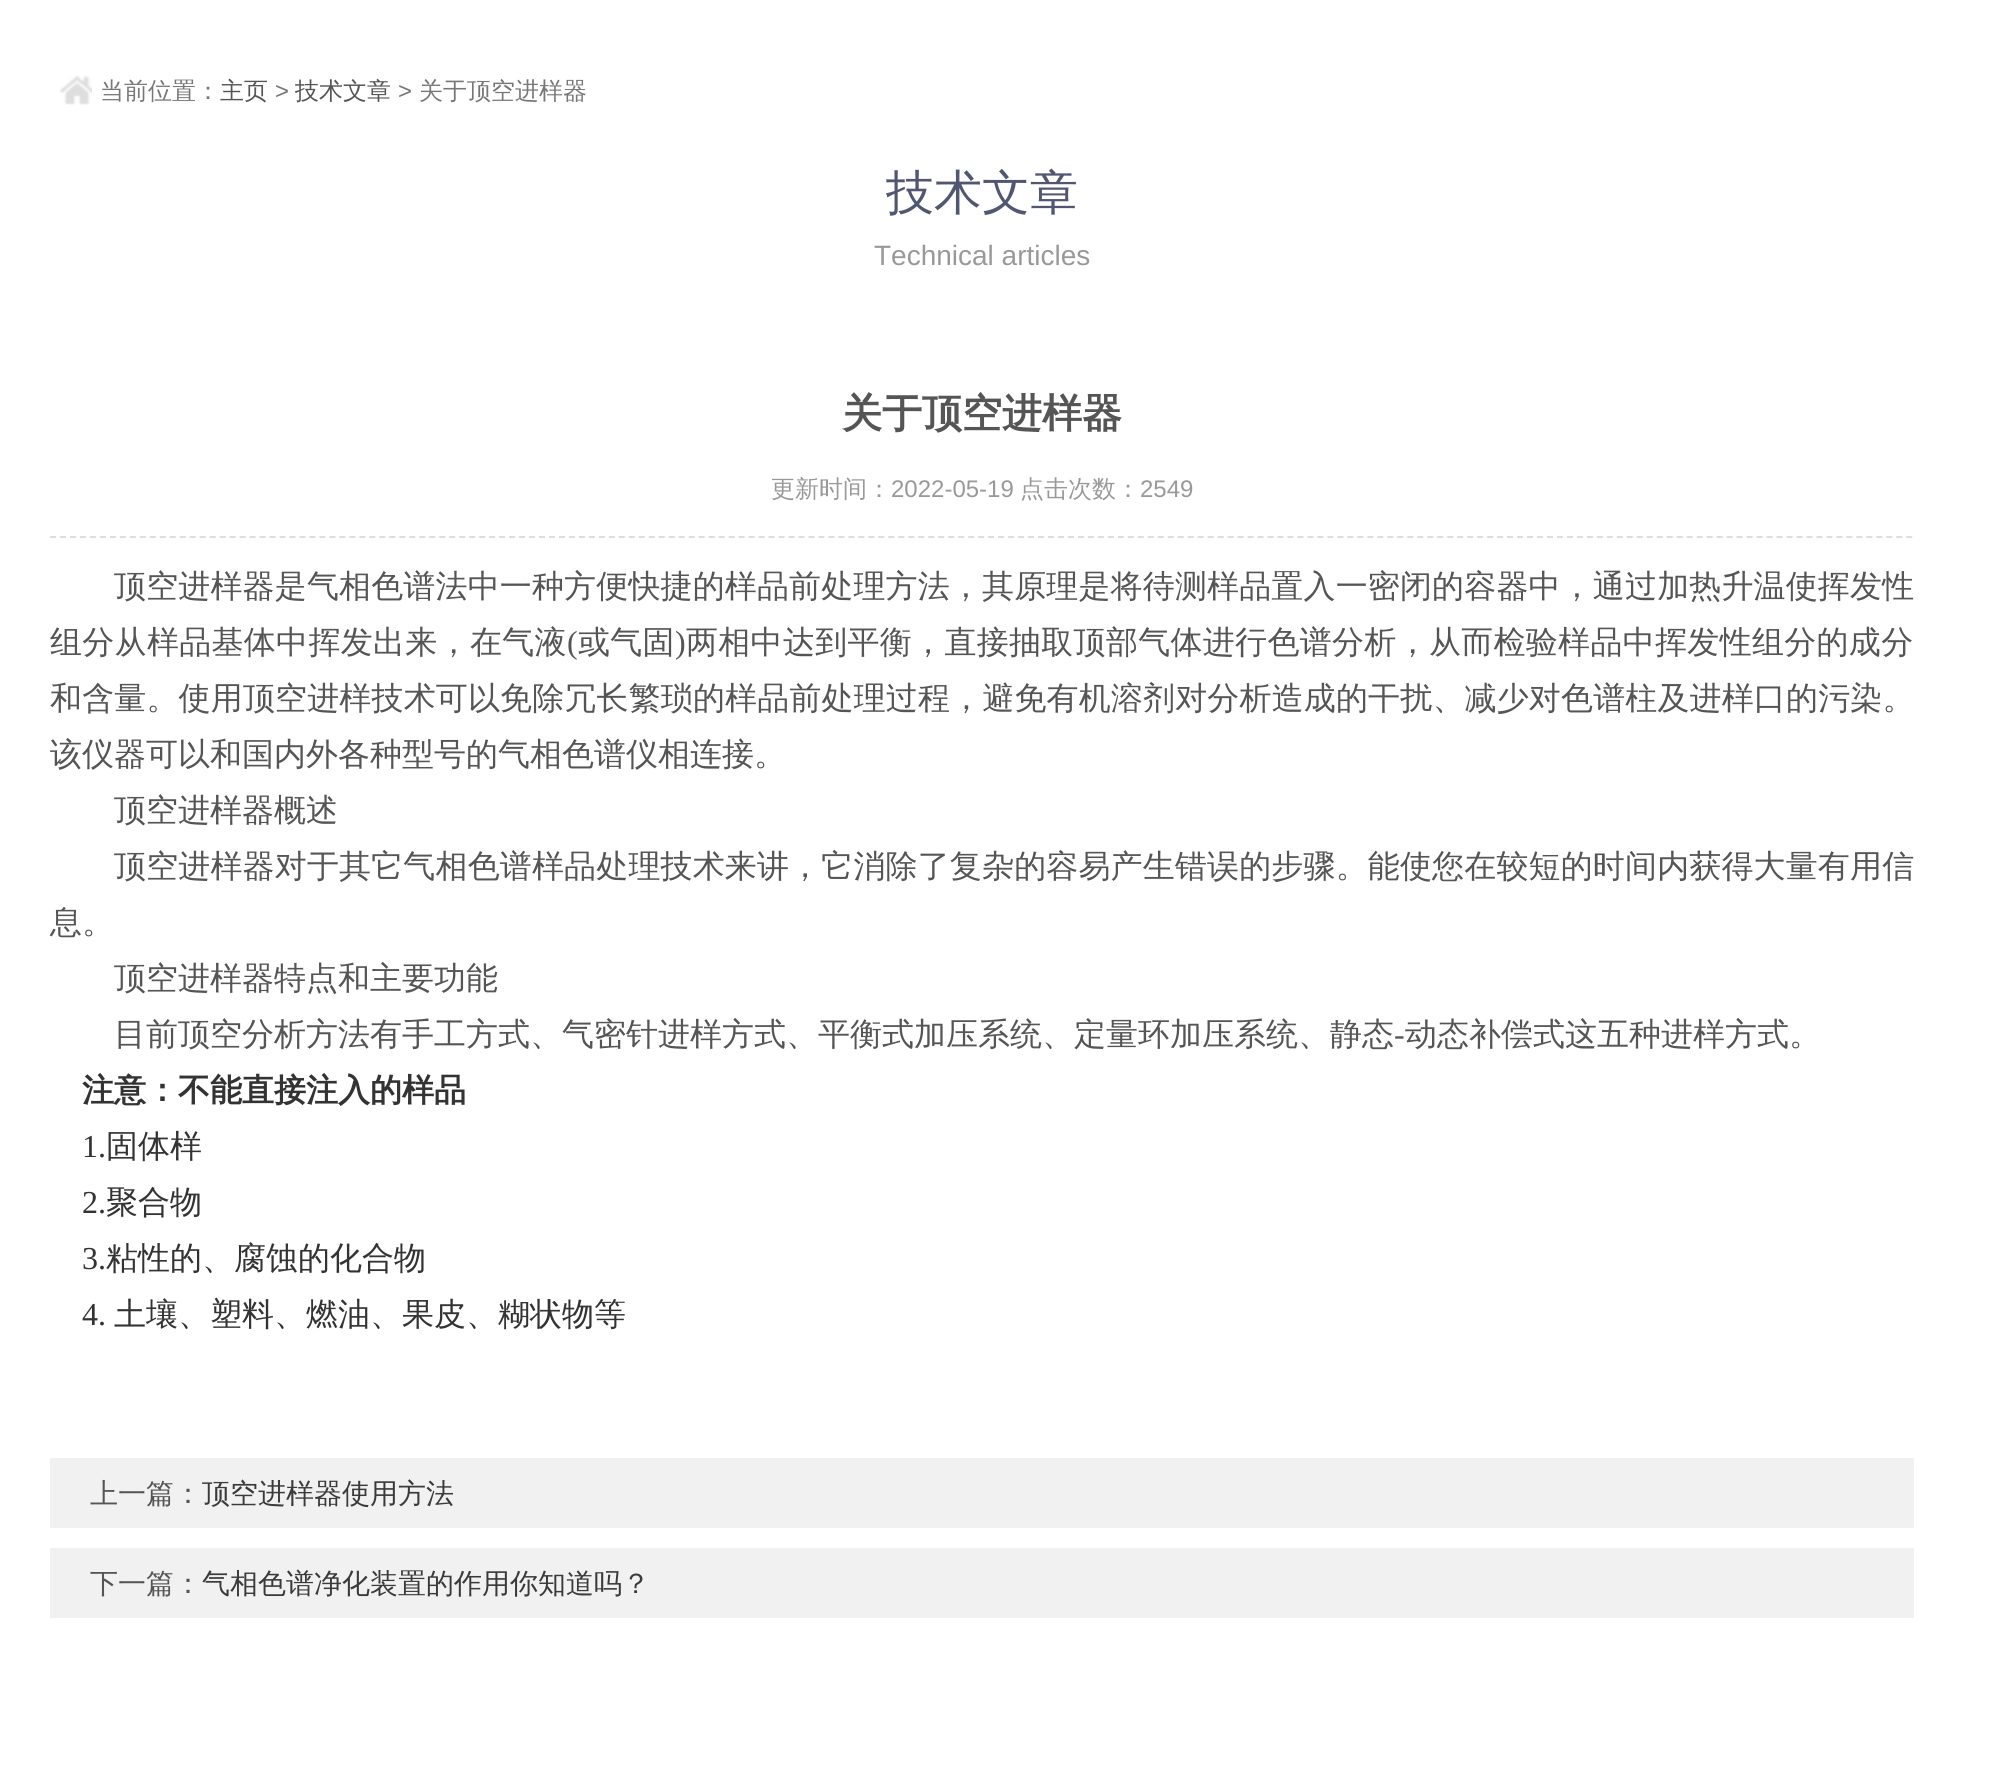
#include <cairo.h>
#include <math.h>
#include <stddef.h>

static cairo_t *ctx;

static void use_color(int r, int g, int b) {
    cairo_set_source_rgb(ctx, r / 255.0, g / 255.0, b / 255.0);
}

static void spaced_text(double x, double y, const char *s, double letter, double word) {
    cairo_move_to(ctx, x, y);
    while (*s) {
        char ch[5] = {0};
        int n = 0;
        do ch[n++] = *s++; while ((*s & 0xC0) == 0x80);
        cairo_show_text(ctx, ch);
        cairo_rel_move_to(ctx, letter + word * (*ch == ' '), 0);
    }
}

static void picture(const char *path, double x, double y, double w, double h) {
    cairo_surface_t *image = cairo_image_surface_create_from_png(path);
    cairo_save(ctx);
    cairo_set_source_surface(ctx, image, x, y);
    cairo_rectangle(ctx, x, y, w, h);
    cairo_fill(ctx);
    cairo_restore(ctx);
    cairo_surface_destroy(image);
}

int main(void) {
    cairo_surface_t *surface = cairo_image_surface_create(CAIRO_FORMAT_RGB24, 2002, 1767);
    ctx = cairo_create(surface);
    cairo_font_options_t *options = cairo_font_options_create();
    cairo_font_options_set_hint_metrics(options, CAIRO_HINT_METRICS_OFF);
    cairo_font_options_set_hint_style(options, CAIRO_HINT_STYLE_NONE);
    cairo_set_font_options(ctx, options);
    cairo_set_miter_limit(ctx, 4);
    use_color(255, 255, 255);
    cairo_paint(ctx);
    picture("img1.png", 60, 75, 32, 30);
    cairo_select_font_face(ctx, "WenQuanYi Zen Hei Medium", CAIRO_FONT_SLANT_NORMAL, CAIRO_FONT_WEIGHT_NORMAL);
    cairo_set_font_size(ctx, 24);
    use_color(119, 119, 119);
    cairo_move_to(ctx, 100, 99);
    cairo_show_text(ctx, "当前位置：");
    use_color(85, 85, 85);
    cairo_move_to(ctx, 220, 99);
    cairo_show_text(ctx, "主页");
    cairo_select_font_face(ctx, "Liberation Sans", CAIRO_FONT_SLANT_NORMAL, CAIRO_FONT_WEIGHT_NORMAL);
    use_color(119, 119, 119);
    cairo_move_to(ctx, 275, 99);
    cairo_show_text(ctx, ">");
    cairo_select_font_face(ctx, "WenQuanYi Zen Hei Medium", CAIRO_FONT_SLANT_NORMAL, CAIRO_FONT_WEIGHT_NORMAL);
    use_color(85, 85, 85);
    cairo_move_to(ctx, 295, 99);
    cairo_show_text(ctx, "技术文章");
    cairo_select_font_face(ctx, "Liberation Sans", CAIRO_FONT_SLANT_NORMAL, CAIRO_FONT_WEIGHT_NORMAL);
    use_color(119, 119, 119);
    cairo_move_to(ctx, 398, 99);
    cairo_show_text(ctx, ">");
    cairo_select_font_face(ctx, "WenQuanYi Zen Hei Medium", CAIRO_FONT_SLANT_NORMAL, CAIRO_FONT_WEIGHT_NORMAL);
    cairo_move_to(ctx, 419, 99);
    cairo_show_text(ctx, "关于顶空进样器");
    cairo_set_font_size(ctx, 48);
    use_color(81, 86, 113);
    cairo_move_to(ctx, 886, 209);
    cairo_show_text(ctx, "技术文章");
    cairo_select_font_face(ctx, "Liberation Sans", CAIRO_FONT_SLANT_NORMAL, CAIRO_FONT_WEIGHT_NORMAL);
    cairo_set_font_size(ctx, 28);
    use_color(153, 153, 153);
    cairo_move_to(ctx, 874, 265);
    cairo_show_text(ctx, "Technical articles");
    cairo_select_font_face(ctx, "WenQuanYi Zen Hei", CAIRO_FONT_SLANT_NORMAL, CAIRO_FONT_WEIGHT_BOLD);
    cairo_set_font_size(ctx, 40);
    use_color(85, 85, 85);
    cairo_move_to(ctx, 842, 427);
    cairo_show_text(ctx, "关于顶空进样器");
    cairo_new_path(ctx);
    cairo_move_to(ctx, 50, 537);
    cairo_line_to(ctx, 1914, 537);
    use_color(222, 222, 222);
    cairo_set_dash(ctx, (double[]){6, 3.98}, 2, 0);
    cairo_stroke(ctx);
    cairo_select_font_face(ctx, "WenQuanYi Zen Hei Medium", CAIRO_FONT_SLANT_NORMAL, CAIRO_FONT_WEIGHT_NORMAL);
    cairo_set_font_size(ctx, 24);
    use_color(153, 153, 153);
    cairo_move_to(ctx, 771, 497);
    cairo_show_text(ctx, "更新时间：");
    cairo_select_font_face(ctx, "Liberation Sans", CAIRO_FONT_SLANT_NORMAL, CAIRO_FONT_WEIGHT_NORMAL);
    cairo_move_to(ctx, 891, 497);
    cairo_show_text(ctx, "2022-05-19");
    cairo_select_font_face(ctx, "WenQuanYi Zen Hei Medium", CAIRO_FONT_SLANT_NORMAL, CAIRO_FONT_WEIGHT_NORMAL);
    cairo_move_to(ctx, 1020, 497);
    cairo_show_text(ctx, "点击次数：");
    cairo_select_font_face(ctx, "Liberation Sans", CAIRO_FONT_SLANT_NORMAL, CAIRO_FONT_WEIGHT_NORMAL);
    cairo_move_to(ctx, 1140, 497);
    cairo_show_text(ctx, "2549");
    cairo_select_font_face(ctx, "WenQuanYi Zen Hei Medium", CAIRO_FONT_SLANT_NORMAL, CAIRO_FONT_WEIGHT_NORMAL);
    cairo_set_font_size(ctx, 32);
    use_color(85, 85, 85);
    spaced_text(114, 597, "顶空进样器是气相色谱法中一种方便快捷的样品前处理方法，其原理是将待测样品置入一密闭的容器中，通过加热升温使挥发性", 0.15, 0);
    spaced_text(50, 653, "组分从样品基体中挥发出来，在气液", 0.3, 0);
    cairo_select_font_face(ctx, "Liberation Serif", CAIRO_FONT_SLANT_NORMAL, CAIRO_FONT_WEIGHT_NORMAL);
    spaced_text(567, 653, "(", 0.3, 0);
    cairo_select_font_face(ctx, "WenQuanYi Zen Hei Medium", CAIRO_FONT_SLANT_NORMAL, CAIRO_FONT_WEIGHT_NORMAL);
    spaced_text(578, 653, "或气固", 0.3, 0);
    cairo_select_font_face(ctx, "Liberation Serif", CAIRO_FONT_SLANT_NORMAL, CAIRO_FONT_WEIGHT_NORMAL);
    spaced_text(675, 653, ")", 0.3, 0);
    cairo_select_font_face(ctx, "WenQuanYi Zen Hei Medium", CAIRO_FONT_SLANT_NORMAL, CAIRO_FONT_WEIGHT_NORMAL);
    spaced_text(686, 653, "两相中达到平衡，直接抽取顶部气体进行色谱分析，从而检验样品中挥发性组分的成分", 0.3, 0);
    spaced_text(50, 709, "和含量。使用顶空进样技术可以免除冗长繁琐的样品前处理过程，避免有机溶剂对分析造成的干扰、减少对色谱柱及进样口的污染。", 0.15, 0);
    cairo_move_to(ctx, 50, 765);
    cairo_show_text(ctx, "该仪器可以和国内外各种型号的气相色谱仪相连接。");
    cairo_move_to(ctx, 114, 821);
    cairo_show_text(ctx, "顶空进样器概述");
    spaced_text(114, 877, "顶空进样器对于其它气相色谱样品处理技术来讲，它消除了复杂的容易产生错误的步骤。能使您在较短的时间内获得大量有用信", 0.15, 0);
    cairo_move_to(ctx, 50, 933);
    cairo_show_text(ctx, "息。");
    cairo_move_to(ctx, 114, 989);
    cairo_show_text(ctx, "顶空进样器特点和主要功能");
    cairo_move_to(ctx, 114, 1045);
    cairo_show_text(ctx, "目前顶空分析方法有手工方式、气密针进样方式、平衡式加压系统、定量环加压系统、静态");
    cairo_select_font_face(ctx, "Liberation Serif", CAIRO_FONT_SLANT_NORMAL, CAIRO_FONT_WEIGHT_NORMAL);
    cairo_move_to(ctx, 1394, 1045);
    cairo_show_text(ctx, "-");
    cairo_select_font_face(ctx, "WenQuanYi Zen Hei Medium", CAIRO_FONT_SLANT_NORMAL, CAIRO_FONT_WEIGHT_NORMAL);
    cairo_move_to(ctx, 1405, 1045);
    cairo_show_text(ctx, "动态补偿式这五种进样方式。");
    cairo_select_font_face(ctx, "WenQuanYi Zen Hei", CAIRO_FONT_SLANT_NORMAL, CAIRO_FONT_WEIGHT_BOLD);
    use_color(51, 51, 51);
    cairo_move_to(ctx, 82, 1101);
    cairo_show_text(ctx, "注意：不能直接注入的样品");
    cairo_select_font_face(ctx, "Liberation Serif", CAIRO_FONT_SLANT_NORMAL, CAIRO_FONT_WEIGHT_NORMAL);
    cairo_move_to(ctx, 82, 1157);
    cairo_show_text(ctx, "1.");
    cairo_select_font_face(ctx, "WenQuanYi Zen Hei Medium", CAIRO_FONT_SLANT_NORMAL, CAIRO_FONT_WEIGHT_NORMAL);
    cairo_move_to(ctx, 106, 1157);
    cairo_show_text(ctx, "固体样");
    cairo_select_font_face(ctx, "Liberation Serif", CAIRO_FONT_SLANT_NORMAL, CAIRO_FONT_WEIGHT_NORMAL);
    cairo_move_to(ctx, 82, 1213);
    cairo_show_text(ctx, "2.");
    cairo_select_font_face(ctx, "WenQuanYi Zen Hei Medium", CAIRO_FONT_SLANT_NORMAL, CAIRO_FONT_WEIGHT_NORMAL);
    cairo_move_to(ctx, 106, 1213);
    cairo_show_text(ctx, "聚合物");
    cairo_select_font_face(ctx, "Liberation Serif", CAIRO_FONT_SLANT_NORMAL, CAIRO_FONT_WEIGHT_NORMAL);
    cairo_move_to(ctx, 82, 1269);
    cairo_show_text(ctx, "3.");
    cairo_select_font_face(ctx, "WenQuanYi Zen Hei Medium", CAIRO_FONT_SLANT_NORMAL, CAIRO_FONT_WEIGHT_NORMAL);
    cairo_move_to(ctx, 106, 1269);
    cairo_show_text(ctx, "粘性的、腐蚀的化合物");
    cairo_select_font_face(ctx, "Liberation Serif", CAIRO_FONT_SLANT_NORMAL, CAIRO_FONT_WEIGHT_NORMAL);
    cairo_move_to(ctx, 82, 1325);
    cairo_show_text(ctx, "4.");
    cairo_select_font_face(ctx, "WenQuanYi Zen Hei Medium", CAIRO_FONT_SLANT_NORMAL, CAIRO_FONT_WEIGHT_NORMAL);
    cairo_move_to(ctx, 114, 1325);
    cairo_show_text(ctx, "土壤、塑料、燃油、果皮、糊状物等");
    use_color(241, 241, 241);
    cairo_rectangle(ctx, 50, 1458, 1864, 70);
    cairo_fill(ctx);
    cairo_set_font_size(ctx, 28);
    use_color(85, 85, 85);
    cairo_move_to(ctx, 90, 1503);
    cairo_show_text(ctx, "上一篇：");
    use_color(58, 58, 58);
    cairo_move_to(ctx, 202, 1503);
    cairo_show_text(ctx, "顶空进样器使用方法");
    use_color(241, 241, 241);
    cairo_rectangle(ctx, 50, 1548, 1864, 70);
    cairo_fill(ctx);
    use_color(85, 85, 85);
    cairo_move_to(ctx, 90, 1593);
    cairo_show_text(ctx, "下一篇：");
    use_color(58, 58, 58);
    cairo_move_to(ctx, 202, 1593);
    cairo_show_text(ctx, "气相色谱净化装置的作用你知道吗？");
    cairo_surface_write_to_png(surface, "result.png");
    cairo_font_options_destroy(options);
    cairo_destroy(ctx);
    cairo_surface_destroy(surface);
    return 0;
}
